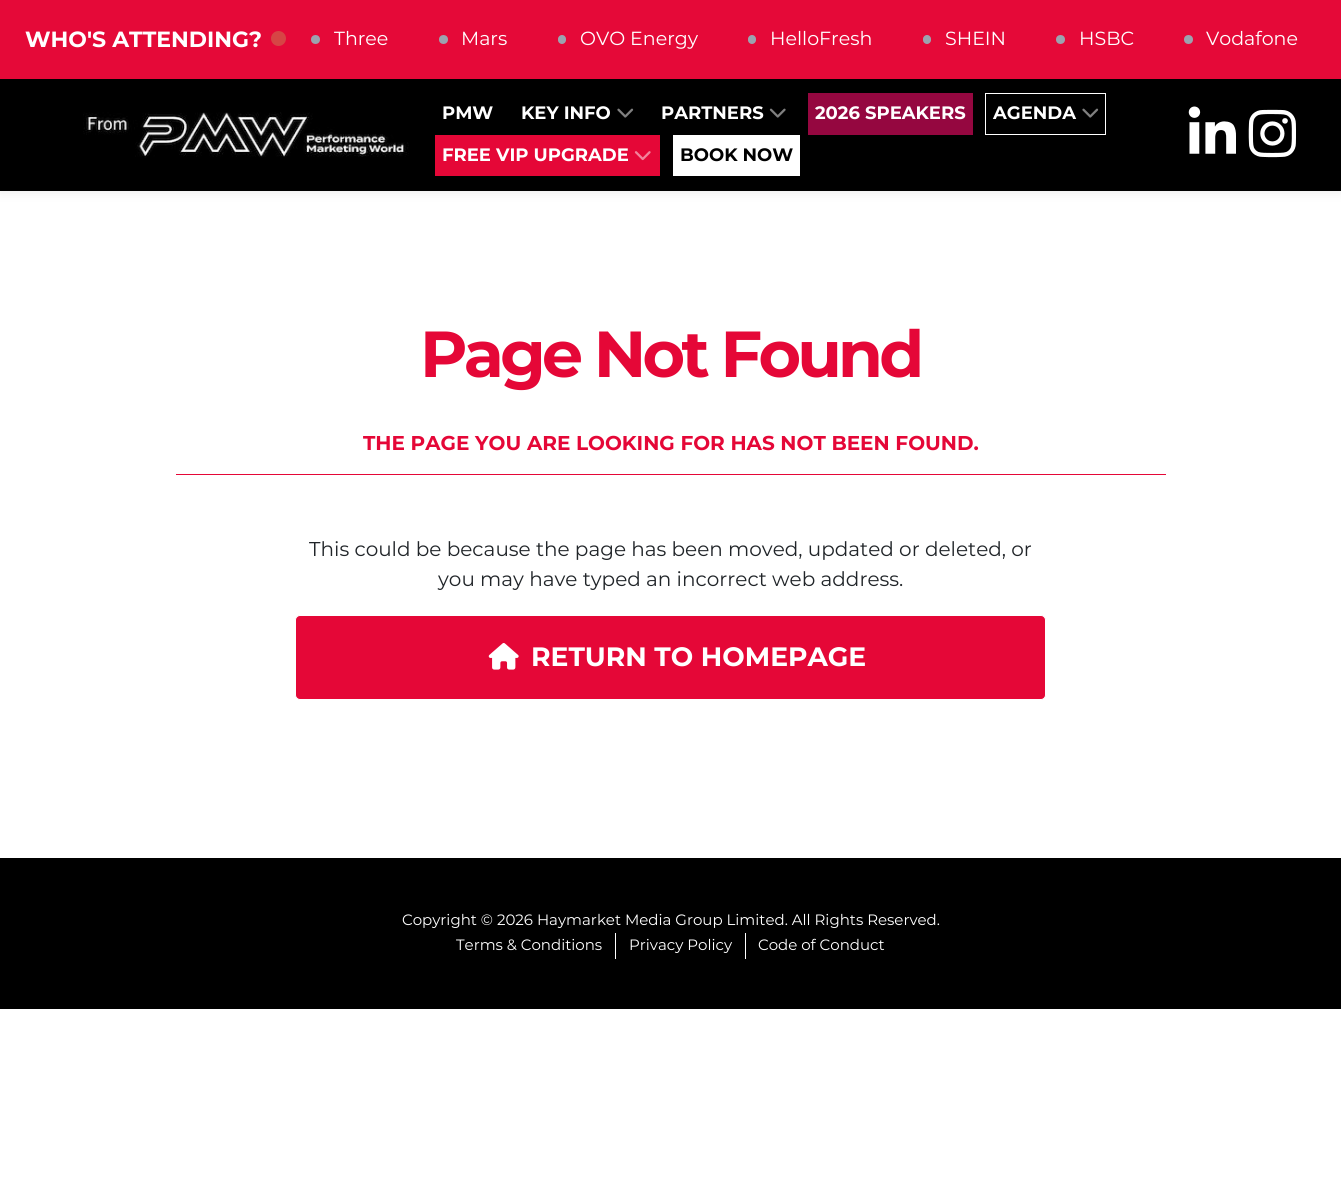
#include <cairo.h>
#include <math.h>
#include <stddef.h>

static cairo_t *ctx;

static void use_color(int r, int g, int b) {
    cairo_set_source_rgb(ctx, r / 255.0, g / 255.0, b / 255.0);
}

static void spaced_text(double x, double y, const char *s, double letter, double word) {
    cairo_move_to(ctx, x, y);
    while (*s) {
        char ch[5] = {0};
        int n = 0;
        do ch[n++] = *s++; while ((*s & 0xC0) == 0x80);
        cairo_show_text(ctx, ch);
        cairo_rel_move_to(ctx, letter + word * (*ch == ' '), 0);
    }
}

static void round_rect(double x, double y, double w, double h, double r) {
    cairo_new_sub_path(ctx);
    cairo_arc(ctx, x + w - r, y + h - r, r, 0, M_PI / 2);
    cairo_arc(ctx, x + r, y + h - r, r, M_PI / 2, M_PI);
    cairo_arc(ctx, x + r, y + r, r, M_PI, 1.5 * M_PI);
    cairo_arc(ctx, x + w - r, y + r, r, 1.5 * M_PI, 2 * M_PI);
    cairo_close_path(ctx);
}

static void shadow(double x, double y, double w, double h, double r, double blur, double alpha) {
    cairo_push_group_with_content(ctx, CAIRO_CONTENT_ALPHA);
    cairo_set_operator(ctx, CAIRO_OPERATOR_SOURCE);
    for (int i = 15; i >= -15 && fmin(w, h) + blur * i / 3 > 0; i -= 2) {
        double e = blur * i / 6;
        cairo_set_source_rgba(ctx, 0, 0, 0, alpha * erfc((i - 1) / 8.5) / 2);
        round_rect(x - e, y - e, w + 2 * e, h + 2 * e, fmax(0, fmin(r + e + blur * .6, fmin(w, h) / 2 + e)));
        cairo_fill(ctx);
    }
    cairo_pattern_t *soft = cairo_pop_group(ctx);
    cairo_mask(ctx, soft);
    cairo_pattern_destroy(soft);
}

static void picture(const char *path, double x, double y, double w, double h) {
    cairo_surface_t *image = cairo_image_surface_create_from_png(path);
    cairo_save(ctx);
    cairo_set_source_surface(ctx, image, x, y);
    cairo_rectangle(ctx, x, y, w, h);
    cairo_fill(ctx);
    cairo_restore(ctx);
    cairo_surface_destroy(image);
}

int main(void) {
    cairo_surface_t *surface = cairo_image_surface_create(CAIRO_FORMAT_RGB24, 1341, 1197);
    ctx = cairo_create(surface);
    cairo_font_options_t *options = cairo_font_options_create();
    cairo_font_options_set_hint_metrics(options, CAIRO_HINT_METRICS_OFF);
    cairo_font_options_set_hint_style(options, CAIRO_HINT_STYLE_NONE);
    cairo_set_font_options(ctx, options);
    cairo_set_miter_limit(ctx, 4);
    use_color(255, 255, 255);
    cairo_paint(ctx);
    use_color(0, 0, 0);
    shadow(0, 79, 1341, 112, 0, 6, 0.1);
    use_color(229, 9, 56);
    cairo_rectangle(ctx, 0, 0, 1341, 79);
    cairo_fill(ctx);
    cairo_select_font_face(ctx, "Montserrat", CAIRO_FONT_SLANT_NORMAL, CAIRO_FONT_WEIGHT_BOLD);
    cairo_set_font_size(ctx, 22);
    use_color(255, 255, 255);
    cairo_move_to(ctx, 25, 47);
    cairo_show_text(ctx, "WHO'S ATTENDING?");
    use_color(214, 69, 69);
    cairo_new_path(ctx);
    cairo_arc(ctx, 278.5, 38.5, 7.5, 0, 2 * M_PI);
    cairo_fill(ctx);
    use_color(156, 163, 175);
    cairo_arc(ctx, 315.5, 39.5, 4.5, 0, 2 * M_PI);
    cairo_fill(ctx);
    cairo_select_font_face(ctx, "Montserrat", CAIRO_FONT_SLANT_NORMAL, CAIRO_FONT_WEIGHT_NORMAL);
    cairo_set_font_size(ctx, 19);
    use_color(255, 255, 255);
    cairo_move_to(ctx, 334, 45);
    cairo_show_text(ctx, "Three");
    use_color(156, 163, 175);
    cairo_new_path(ctx);
    cairo_arc(ctx, 443.5, 39.5, 4.5, 0, 2 * M_PI);
    cairo_fill(ctx);
    use_color(255, 255, 255);
    cairo_move_to(ctx, 461, 45);
    cairo_show_text(ctx, "Mars");
    use_color(156, 163, 175);
    round_rect(558, 35, 8, 9, 4);
    cairo_fill(ctx);
    use_color(255, 255, 255);
    cairo_move_to(ctx, 580, 45);
    cairo_show_text(ctx, "OVO Energy");
    use_color(156, 163, 175);
    round_rect(748, 35, 8, 9, 4);
    cairo_fill(ctx);
    use_color(255, 255, 255);
    cairo_move_to(ctx, 770, 45);
    cairo_show_text(ctx, "HelloFresh");
    use_color(156, 163, 175);
    round_rect(923, 35, 8, 9, 4);
    cairo_fill(ctx);
    use_color(255, 255, 255);
    cairo_move_to(ctx, 945, 45);
    cairo_show_text(ctx, "SHEIN");
    use_color(156, 163, 175);
    cairo_new_path(ctx);
    cairo_arc(ctx, 1060.5, 39.5, 4.5, 0, 2 * M_PI);
    cairo_fill(ctx);
    use_color(255, 255, 255);
    cairo_move_to(ctx, 1079, 45);
    cairo_show_text(ctx, "HSBC");
    use_color(156, 163, 175);
    cairo_new_path(ctx);
    cairo_arc(ctx, 1188.5, 39.5, 4.5, 0, 2 * M_PI);
    cairo_fill(ctx);
    use_color(255, 255, 255);
    cairo_move_to(ctx, 1206, 45);
    cairo_show_text(ctx, "Vodafone");
    use_color(0, 0, 0);
    cairo_rectangle(ctx, 0, 79, 1341, 112);
    cairo_fill(ctx);
    picture("img1.png", 83, 112, 326, 46);
    cairo_select_font_face(ctx, "Montserrat", CAIRO_FONT_SLANT_NORMAL, CAIRO_FONT_WEIGHT_BOLD);
    cairo_set_font_size(ctx, 18);
    use_color(255, 255, 255);
    cairo_move_to(ctx, 442, 119);
    cairo_show_text(ctx, "PMW");
    cairo_move_to(ctx, 521, 119);
    cairo_show_text(ctx, "KEY INFO");
    picture("img2.png", 617, 108, 17, 10);
    cairo_move_to(ctx, 661, 119);
    cairo_show_text(ctx, "PARTNERS");
    picture("img3.png", 769, 108, 17, 10);
    use_color(149, 7, 64);
    cairo_rectangle(ctx, 808, 93, 165, 42);
    cairo_fill(ctx);
    use_color(255, 255, 255);
    cairo_move_to(ctx, 815, 119);
    cairo_show_text(ctx, "2026 SPEAKERS");
    cairo_rectangle(ctx, 985.5, 93.5, 120, 41);
    cairo_set_line_width(ctx, 1);
    cairo_stroke(ctx);
    cairo_move_to(ctx, 993, 119);
    cairo_show_text(ctx, "AGENDA");
    picture("img2.png", 1082, 108, 17, 10);
    use_color(229, 7, 55);
    cairo_rectangle(ctx, 435, 135, 225, 41);
    cairo_fill(ctx);
    use_color(255, 255, 255);
    cairo_move_to(ctx, 442, 161);
    cairo_show_text(ctx, "FREE VIP UPGRADE");
    picture("img4.png", 634, 151, 17, 10);
    cairo_rectangle(ctx, 673, 135, 127, 41);
    cairo_fill(ctx);
    use_color(0, 0, 0);
    cairo_move_to(ctx, 680, 161);
    cairo_show_text(ctx, "BOOK NOW");
    picture("img5.png", 1188, 106, 48, 48);
    picture("img6.png", 1248, 109, 48, 49);
    cairo_set_font_size(ctx, 65);
    use_color(229, 7, 55);
    spaced_text(420, 377, "Page Not Found", -3.75, 0);
    cairo_set_font_size(ctx, 20);
    cairo_move_to(ctx, 363, 450);
    cairo_show_text(ctx, "THE PAGE YOU ARE LOOKING FOR HAS NOT BEEN FOUND.");
    cairo_rectangle(ctx, 176, 474, 990, 1);
    cairo_fill(ctx);
    cairo_select_font_face(ctx, "Montserrat", CAIRO_FONT_SLANT_NORMAL, CAIRO_FONT_WEIGHT_NORMAL);
    use_color(33, 37, 41);
    cairo_move_to(ctx, 309, 556);
    cairo_show_text(ctx, "This could be because the page has been moved, updated or deleted, or");
    cairo_move_to(ctx, 438, 586);
    cairo_show_text(ctx, "you may have typed an incorrect web address.");
    use_color(229, 7, 55);
    round_rect(295.5, 615.5, 750, 84, 4.5);
    cairo_fill_preserve(ctx);
    use_color(255, 255, 255);
    cairo_stroke(ctx);
    picture("img7.png", 488, 643, 31, 27);
    cairo_select_font_face(ctx, "Montserrat", CAIRO_FONT_SLANT_NORMAL, CAIRO_FONT_WEIGHT_BOLD);
    cairo_set_font_size(ctx, 26.6);
    cairo_move_to(ctx, 531, 666);
    cairo_show_text(ctx, "RETURN TO HOMEPAGE");
    use_color(0, 0, 0);
    cairo_rectangle(ctx, 0, 858, 1341, 151);
    cairo_fill(ctx);
    cairo_select_font_face(ctx, "Montserrat", CAIRO_FONT_SLANT_NORMAL, CAIRO_FONT_WEIGHT_NORMAL);
    cairo_set_font_size(ctx, 15);
    use_color(255, 255, 255);
    cairo_move_to(ctx, 402, 925);
    cairo_show_text(ctx, "Copyright © 2026 Haymarket Media Group Limited. All Rights Reserved.");
    cairo_move_to(ctx, 456, 950);
    cairo_show_text(ctx, "Terms & Conditions");
    cairo_rectangle(ctx, 615, 933, 1, 26);
    cairo_fill(ctx);
    cairo_move_to(ctx, 629, 950);
    cairo_show_text(ctx, "Privacy Policy");
    cairo_rectangle(ctx, 745, 933, 1, 26);
    cairo_fill(ctx);
    cairo_move_to(ctx, 758, 950);
    cairo_show_text(ctx, "Code of Conduct");
    cairo_surface_write_to_png(surface, "result.png");
    cairo_font_options_destroy(options);
    cairo_destroy(ctx);
    cairo_surface_destroy(surface);
    return 0;
}
